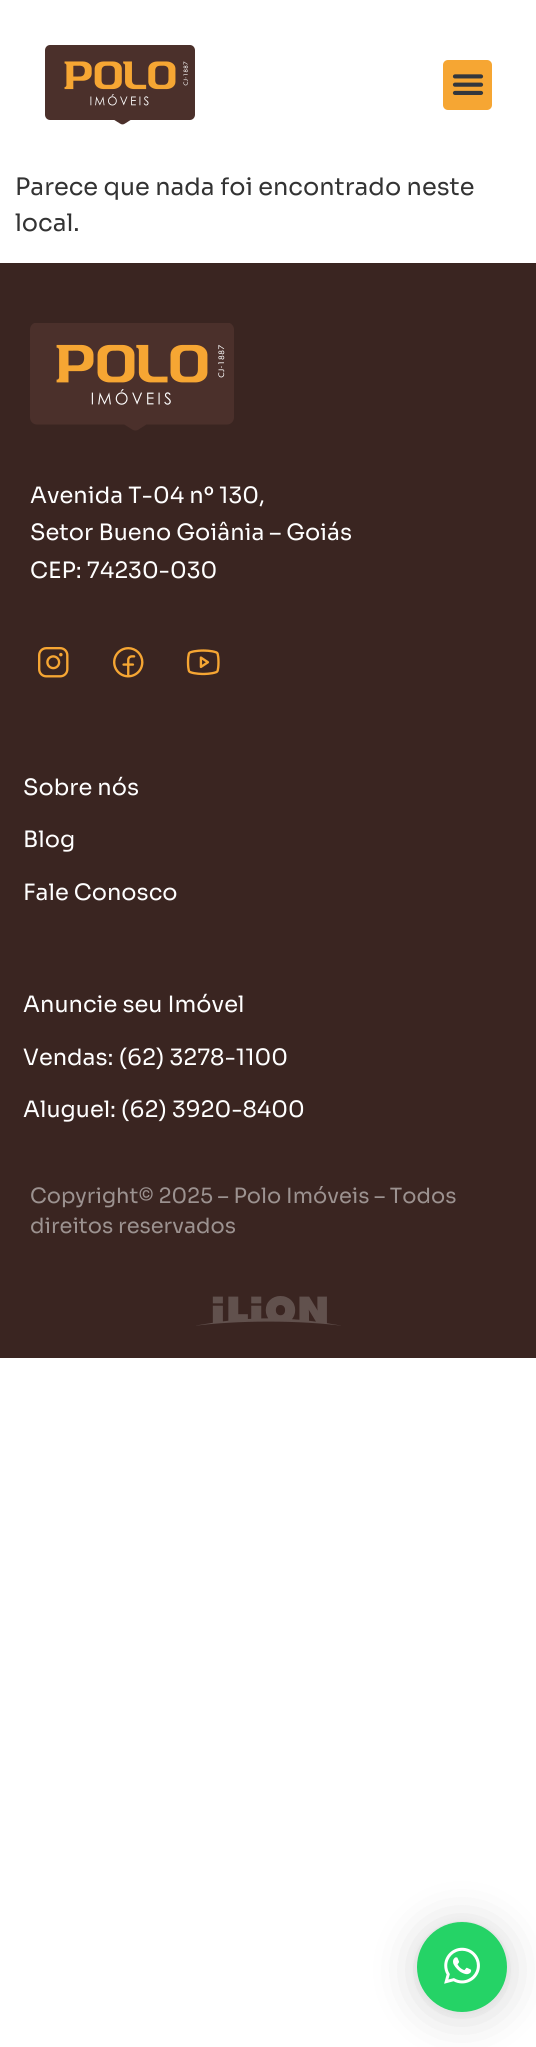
#include <cairo.h>
#include <math.h>
#include <stddef.h>

static cairo_t *ctx;

static void use_color(int r, int g, int b) {
    cairo_set_source_rgb(ctx, r / 255.0, g / 255.0, b / 255.0);
}

static void round_rect(double x, double y, double w, double h, double r) {
    cairo_new_sub_path(ctx);
    cairo_arc(ctx, x + w - r, y + h - r, r, 0, M_PI / 2);
    cairo_arc(ctx, x + r, y + h - r, r, M_PI / 2, M_PI);
    cairo_arc(ctx, x + r, y + r, r, M_PI, 1.5 * M_PI);
    cairo_arc(ctx, x + w - r, y + r, r, 1.5 * M_PI, 2 * M_PI);
    cairo_close_path(ctx);
}

static void shadow(double x, double y, double w, double h, double r, double blur, double alpha) {
    cairo_push_group_with_content(ctx, CAIRO_CONTENT_ALPHA);
    cairo_set_operator(ctx, CAIRO_OPERATOR_SOURCE);
    for (int i = 15; i >= -15 && fmin(w, h) + blur * i / 3 > 0; i -= 2) {
        double e = blur * i / 6;
        cairo_set_source_rgba(ctx, 0, 0, 0, alpha * erfc((i - 1) / 8.5) / 2);
        round_rect(x - e, y - e, w + 2 * e, h + 2 * e, fmax(0, fmin(r + e + blur * .6, fmin(w, h) / 2 + e)));
        cairo_fill(ctx);
    }
    cairo_pattern_t *soft = cairo_pop_group(ctx);
    cairo_mask(ctx, soft);
    cairo_pattern_destroy(soft);
}

static void picture(const char *path, double x, double y, double w, double h) {
    cairo_surface_t *image = cairo_image_surface_create_from_png(path);
    cairo_save(ctx);
    cairo_set_source_surface(ctx, image, x, y);
    cairo_rectangle(ctx, x, y, w, h);
    cairo_fill(ctx);
    cairo_restore(ctx);
    cairo_surface_destroy(image);
}

int main(void) {
    cairo_surface_t *surface = cairo_image_surface_create(CAIRO_FORMAT_RGB24, 536, 2047);
    ctx = cairo_create(surface);
    cairo_font_options_t *options = cairo_font_options_create();
    cairo_font_options_set_hint_metrics(options, CAIRO_HINT_METRICS_OFF);
    cairo_font_options_set_hint_style(options, CAIRO_HINT_STYLE_NONE);
    cairo_set_font_options(ctx, options);
    cairo_set_miter_limit(ctx, 4);
    use_color(255, 255, 255);
    cairo_paint(ctx);
    picture("img1.png", 45, 45, 150, 80);
    use_color(246, 166, 51);
    round_rect(443, 60, 49, 50, 5);
    cairo_fill(ctx);
    picture("img2.png", 452, 74, 32, 21);
    cairo_select_font_face(ctx, "Sora", CAIRO_FONT_SLANT_NORMAL, CAIRO_FONT_WEIGHT_NORMAL);
    cairo_set_font_size(ctx, 24);
    use_color(51, 51, 51);
    cairo_move_to(ctx, 15, 195);
    cairo_show_text(ctx, "Parece que nada foi encontrado neste");
    cairo_move_to(ctx, 15, 231);
    cairo_show_text(ctx, "local.");
    use_color(58, 37, 33);
    cairo_rectangle(ctx, 0, 263, 536, 1095);
    cairo_fill(ctx);
    picture("img3.png", 30, 323, 204, 108);
    cairo_set_font_size(ctx, 22.5);
    use_color(255, 255, 255);
    cairo_move_to(ctx, 30, 503);
    cairo_show_text(ctx, "Avenida T-04 nº 130,");
    cairo_move_to(ctx, 30, 540);
    cairo_show_text(ctx, "Setor Bueno Goiânia – Goiás");
    cairo_move_to(ctx, 30, 578);
    cairo_show_text(ctx, "CEP: 74230-030");
    picture("img4.png", 38, 647, 31, 31);
    picture("img5.png", 113, 647, 31, 31);
    picture("img6.png", 186, 649, 34, 27);
    cairo_move_to(ctx, 23, 795);
    cairo_show_text(ctx, "Sobre nós");
    cairo_move_to(ctx, 23, 847);
    cairo_show_text(ctx, "Blog");
    cairo_move_to(ctx, 23, 900);
    cairo_show_text(ctx, "Fale Conosco");
    cairo_move_to(ctx, 23, 1012);
    cairo_show_text(ctx, "Anuncie seu Imóvel");
    cairo_move_to(ctx, 23, 1065);
    cairo_show_text(ctx, "Vendas: (62) 3278-1100");
    cairo_move_to(ctx, 23, 1117);
    cairo_show_text(ctx, "Aluguel: (62) 3920-8400");
    cairo_set_font_size(ctx, 21);
    use_color(156, 146, 144);
    cairo_move_to(ctx, 30, 1203);
    cairo_show_text(ctx, "Copyright© 2025 – Polo Imóveis – Todos");
    cairo_move_to(ctx, 30, 1233);
    cairo_show_text(ctx, "direitos reservados");
    picture("img7.png", 196, 1296, 145, 30);
    use_color(0, 0, 0);
    shadow(417, 1925, 90, 90, 45, 24, 0.16);
    shadow(417, 1923, 90, 90, 45, 4.5, 0.06);
    use_color(37, 211, 102);
    cairo_arc(ctx, 462, 1967, 45, 0, 2 * M_PI);
    cairo_fill(ctx);
    picture("img8.png", 444, 1947, 36, 37);
    cairo_surface_write_to_png(surface, "result.png");
    cairo_font_options_destroy(options);
    cairo_destroy(ctx);
    cairo_surface_destroy(surface);
    return 0;
}
